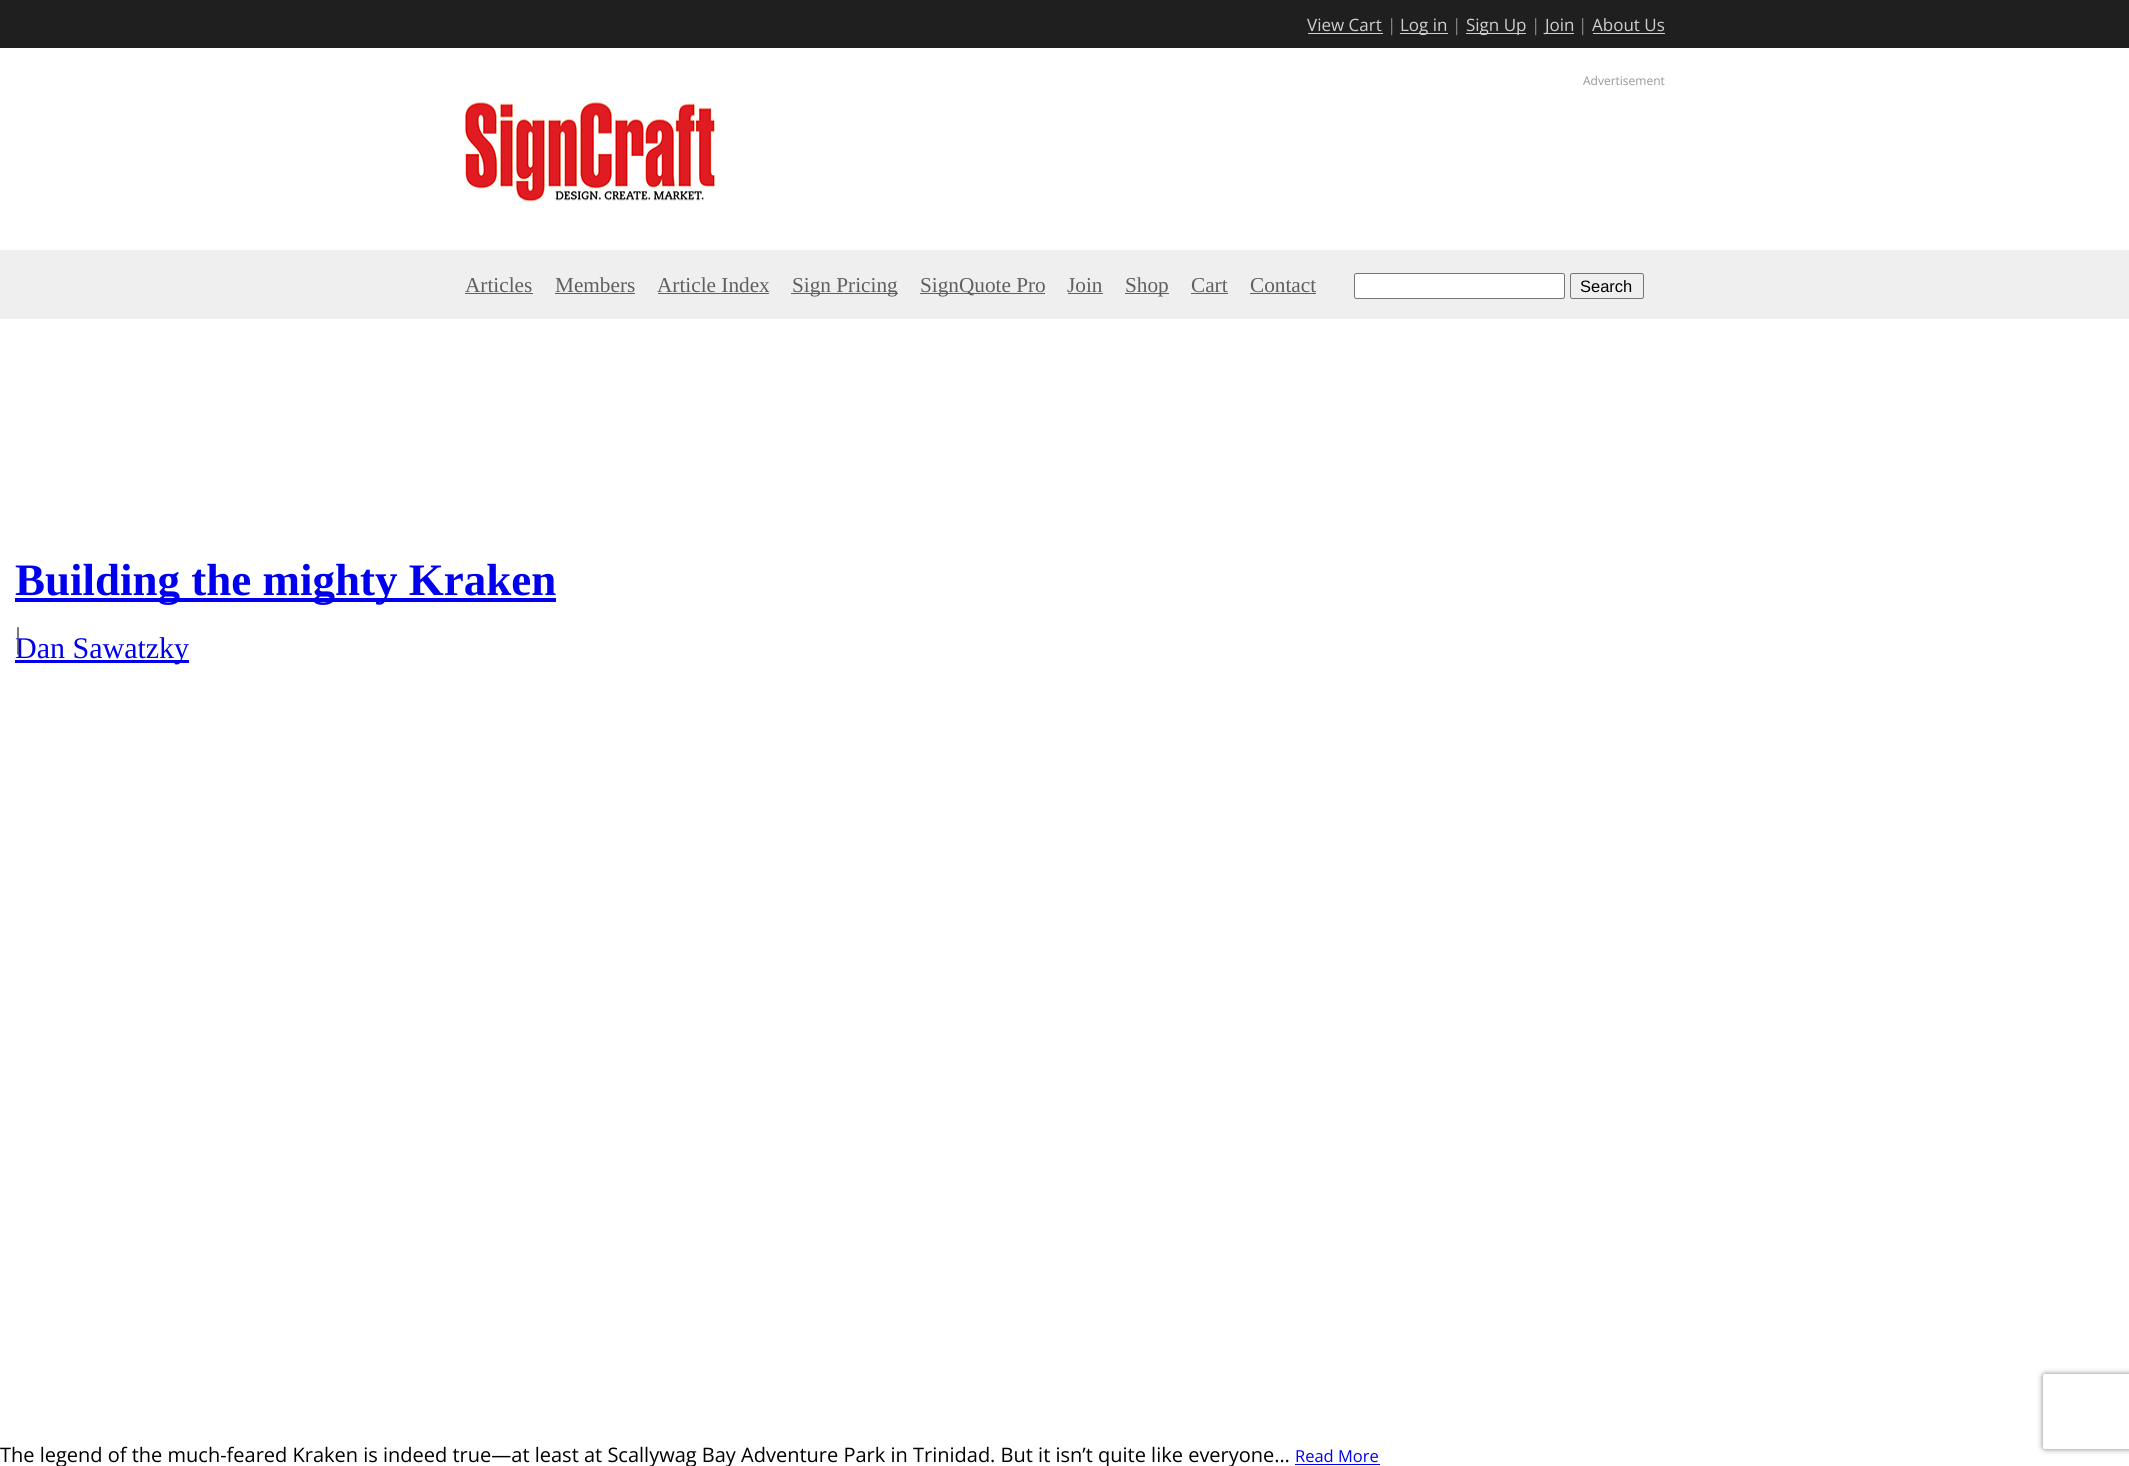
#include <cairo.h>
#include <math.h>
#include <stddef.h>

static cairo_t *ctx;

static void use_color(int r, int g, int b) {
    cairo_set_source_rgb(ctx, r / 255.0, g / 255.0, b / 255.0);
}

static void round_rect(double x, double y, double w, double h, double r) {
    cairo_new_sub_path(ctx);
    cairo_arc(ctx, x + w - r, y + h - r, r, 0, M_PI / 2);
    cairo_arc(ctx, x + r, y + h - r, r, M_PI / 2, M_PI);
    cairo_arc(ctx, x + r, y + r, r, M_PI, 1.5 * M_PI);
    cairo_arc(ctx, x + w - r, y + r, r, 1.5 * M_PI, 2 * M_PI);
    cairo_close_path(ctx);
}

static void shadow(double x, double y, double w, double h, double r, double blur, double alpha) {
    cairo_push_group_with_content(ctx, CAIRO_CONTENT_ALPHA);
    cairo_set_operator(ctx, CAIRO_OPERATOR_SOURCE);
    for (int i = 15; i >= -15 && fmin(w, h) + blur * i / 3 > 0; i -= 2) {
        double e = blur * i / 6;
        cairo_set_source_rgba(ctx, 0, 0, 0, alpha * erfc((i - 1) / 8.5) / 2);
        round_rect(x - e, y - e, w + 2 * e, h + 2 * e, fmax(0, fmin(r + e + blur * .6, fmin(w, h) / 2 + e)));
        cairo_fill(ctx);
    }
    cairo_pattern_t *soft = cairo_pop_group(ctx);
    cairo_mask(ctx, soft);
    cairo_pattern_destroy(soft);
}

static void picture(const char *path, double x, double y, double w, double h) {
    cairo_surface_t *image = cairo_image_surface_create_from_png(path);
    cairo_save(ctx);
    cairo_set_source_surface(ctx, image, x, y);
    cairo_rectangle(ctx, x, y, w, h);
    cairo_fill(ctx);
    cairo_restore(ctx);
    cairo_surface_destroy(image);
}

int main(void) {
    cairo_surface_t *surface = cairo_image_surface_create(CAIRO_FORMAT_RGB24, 2129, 1466);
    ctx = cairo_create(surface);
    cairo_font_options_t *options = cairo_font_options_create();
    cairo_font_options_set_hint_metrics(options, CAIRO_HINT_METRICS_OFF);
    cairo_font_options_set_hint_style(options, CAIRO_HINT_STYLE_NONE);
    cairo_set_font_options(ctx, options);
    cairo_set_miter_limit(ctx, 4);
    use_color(255, 255, 255);
    cairo_paint(ctx);
    use_color(31, 31, 31);
    cairo_rectangle(ctx, 0, 0, 2129, 48);
    cairo_fill(ctx);
    cairo_select_font_face(ctx, "Open Sans", CAIRO_FONT_SLANT_NORMAL, CAIRO_FONT_WEIGHT_NORMAL);
    cairo_set_font_size(ctx, 17);
    use_color(207, 207, 207);
    cairo_move_to(ctx, 1307, 31);
    cairo_show_text(ctx, "View Cart");
    cairo_rectangle(ctx, 1308, 33, 75, 1);
    cairo_fill(ctx);
    use_color(136, 136, 136);
    cairo_move_to(ctx, 1387, 31);
    cairo_show_text(ctx, "|");
    use_color(207, 207, 207);
    cairo_rectangle(ctx, 1400, 33, 48, 1);
    cairo_fill(ctx);
    cairo_move_to(ctx, 1400, 31);
    cairo_show_text(ctx, "Log in");
    use_color(136, 136, 136);
    cairo_move_to(ctx, 1452, 31);
    cairo_show_text(ctx, "|");
    use_color(207, 207, 207);
    cairo_rectangle(ctx, 1466, 33, 60, 1);
    cairo_fill(ctx);
    cairo_move_to(ctx, 1466, 31);
    cairo_show_text(ctx, "Sign Up");
    use_color(136, 136, 136);
    cairo_move_to(ctx, 1531, 31);
    cairo_show_text(ctx, "|");
    use_color(207, 207, 207);
    cairo_rectangle(ctx, 1545, 33, 29, 1);
    cairo_fill(ctx);
    cairo_move_to(ctx, 1545, 31);
    cairo_show_text(ctx, "Join");
    use_color(136, 136, 136);
    cairo_move_to(ctx, 1578, 31);
    cairo_show_text(ctx, "|");
    use_color(207, 207, 207);
    cairo_move_to(ctx, 1592, 31);
    cairo_show_text(ctx, "About Us");
    cairo_rectangle(ctx, 1593, 33, 72, 1);
    cairo_fill(ctx);
    cairo_set_font_size(ctx, 12);
    use_color(150, 150, 150);
    cairo_move_to(ctx, 1583, 85);
    cairo_show_text(ctx, "Advertisement");
    picture("img1.png", 465, 102, 250, 100);
    use_color(239, 239, 239);
    cairo_rectangle(ctx, 0, 250, 2129, 69);
    cairo_fill(ctx);
    cairo_select_font_face(ctx, "Liberation Serif", CAIRO_FONT_SLANT_NORMAL, CAIRO_FONT_WEIGHT_NORMAL);
    cairo_set_font_size(ctx, 21.25);
    use_color(95, 95, 95);
    cairo_move_to(ctx, 465, 292);
    cairo_show_text(ctx, "Articles");
    cairo_rectangle(ctx, 465, 293, 68, 1);
    cairo_fill(ctx);
    cairo_move_to(ctx, 555, 292);
    cairo_show_text(ctx, "Members");
    cairo_rectangle(ctx, 555, 293, 80, 1);
    cairo_fill(ctx);
    cairo_move_to(ctx, 657, 292);
    cairo_show_text(ctx, "Article Index");
    cairo_rectangle(ctx, 658, 293, 111, 1);
    cairo_fill(ctx);
    cairo_rectangle(ctx, 791, 293, 107, 1);
    cairo_fill(ctx);
    cairo_move_to(ctx, 792, 292);
    cairo_show_text(ctx, "Sign Pricing");
    cairo_rectangle(ctx, 920, 293, 125, 1);
    cairo_fill(ctx);
    cairo_move_to(ctx, 920, 292);
    cairo_show_text(ctx, "SignQuote Pro");
    cairo_move_to(ctx, 1067, 292);
    cairo_show_text(ctx, "Join");
    cairo_rectangle(ctx, 1068, 293, 35, 1);
    cairo_fill(ctx);
    cairo_rectangle(ctx, 1125, 293, 44, 1);
    cairo_fill(ctx);
    cairo_move_to(ctx, 1125, 292);
    cairo_show_text(ctx, "Shop");
    cairo_move_to(ctx, 1191, 292);
    cairo_show_text(ctx, "Cart");
    cairo_rectangle(ctx, 1191, 293, 37, 1);
    cairo_fill(ctx);
    cairo_move_to(ctx, 1250, 292);
    cairo_show_text(ctx, "Contact");
    cairo_rectangle(ctx, 1250, 293, 66, 1);
    cairo_fill(ctx);
    use_color(255, 255, 255);
    round_rect(1354.5, 273.5, 210, 25, 2);
    cairo_fill_preserve(ctx);
    use_color(118, 118, 118);
    cairo_set_line_width(ctx, 1);
    cairo_stroke(ctx);
    round_rect(1570.5, 273.5, 73, 25, 2);
    cairo_stroke(ctx);
    cairo_select_font_face(ctx, "Liberation Sans", CAIRO_FONT_SLANT_NORMAL, CAIRO_FONT_WEIGHT_NORMAL);
    cairo_set_font_size(ctx, 16.5);
    use_color(0, 0, 0);
    cairo_move_to(ctx, 1580, 292);
    cairo_show_text(ctx, "Search");
    use_color(0, 0, 238);
    cairo_rectangle(ctx, 15, 598, 541, 4);
    cairo_fill(ctx);
    cairo_select_font_face(ctx, "Liberation Serif", CAIRO_FONT_SLANT_NORMAL, CAIRO_FONT_WEIGHT_BOLD);
    cairo_set_font_size(ctx, 45);
    cairo_move_to(ctx, 15, 595);
    cairo_show_text(ctx, "Building the mighty Kraken");
    cairo_rectangle(ctx, 15, 660, 174, 3);
    cairo_fill(ctx);
    cairo_select_font_face(ctx, "Liberation Serif", CAIRO_FONT_SLANT_NORMAL, CAIRO_FONT_WEIGHT_NORMAL);
    cairo_set_font_size(ctx, 30);
    cairo_move_to(ctx, 15, 658);
    cairo_show_text(ctx, "Dan Sawatzky");
    use_color(79, 79, 79);
    cairo_move_to(ctx, 15, 648);
    cairo_show_text(ctx, "|");
    cairo_select_font_face(ctx, "Open Sans", CAIRO_FONT_SLANT_NORMAL, CAIRO_FONT_WEIGHT_NORMAL);
    cairo_set_font_size(ctx, 20);
    use_color(0, 0, 0);
    cairo_move_to(ctx, 0, 1462);
    cairo_show_text(ctx, "The legend of the much-feared Kraken is indeed true—at least at Scallywag Bay Adventure Park in Trinidad. But it isn’t quite like everyone…");
    cairo_set_font_size(ctx, 16.5);
    use_color(0, 0, 238);
    cairo_move_to(ctx, 1295, 1462);
    cairo_show_text(ctx, "Read More");
    cairo_rectangle(ctx, 1295, 1464, 85, 1);
    cairo_fill(ctx);
    cairo_save(ctx);
    cairo_set_fill_rule(ctx, CAIRO_FILL_RULE_EVEN_ODD);
    cairo_new_path(ctx);
    cairo_move_to(ctx, 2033, 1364);
    cairo_line_to(ctx, 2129, 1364);
    cairo_line_to(ctx, 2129, 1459);
    cairo_line_to(ctx, 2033, 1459);
    cairo_close_path(ctx);
    cairo_move_to(ctx, 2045.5, 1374);
    cairo_line_to(ctx, 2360.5, 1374);
    cairo_curve_to(ctx, 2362, 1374, 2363, 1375, 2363, 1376.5);
    cairo_line_to(ctx, 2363, 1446.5);
    cairo_curve_to(ctx, 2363, 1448, 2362, 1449, 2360.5, 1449);
    cairo_line_to(ctx, 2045.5, 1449);
    cairo_curve_to(ctx, 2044, 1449, 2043, 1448, 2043, 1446.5);
    cairo_line_to(ctx, 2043, 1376.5);
    cairo_curve_to(ctx, 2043, 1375, 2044, 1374, 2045.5, 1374);
    cairo_close_path(ctx);
    cairo_clip(ctx);
    use_color(128, 128, 128);
    shadow(2043, 1374, 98, 75, 2.5, 3, 1);
    cairo_restore(ctx);
    cairo_surface_write_to_png(surface, "result.png");
    cairo_font_options_destroy(options);
    cairo_destroy(ctx);
    cairo_surface_destroy(surface);
    return 0;
}
